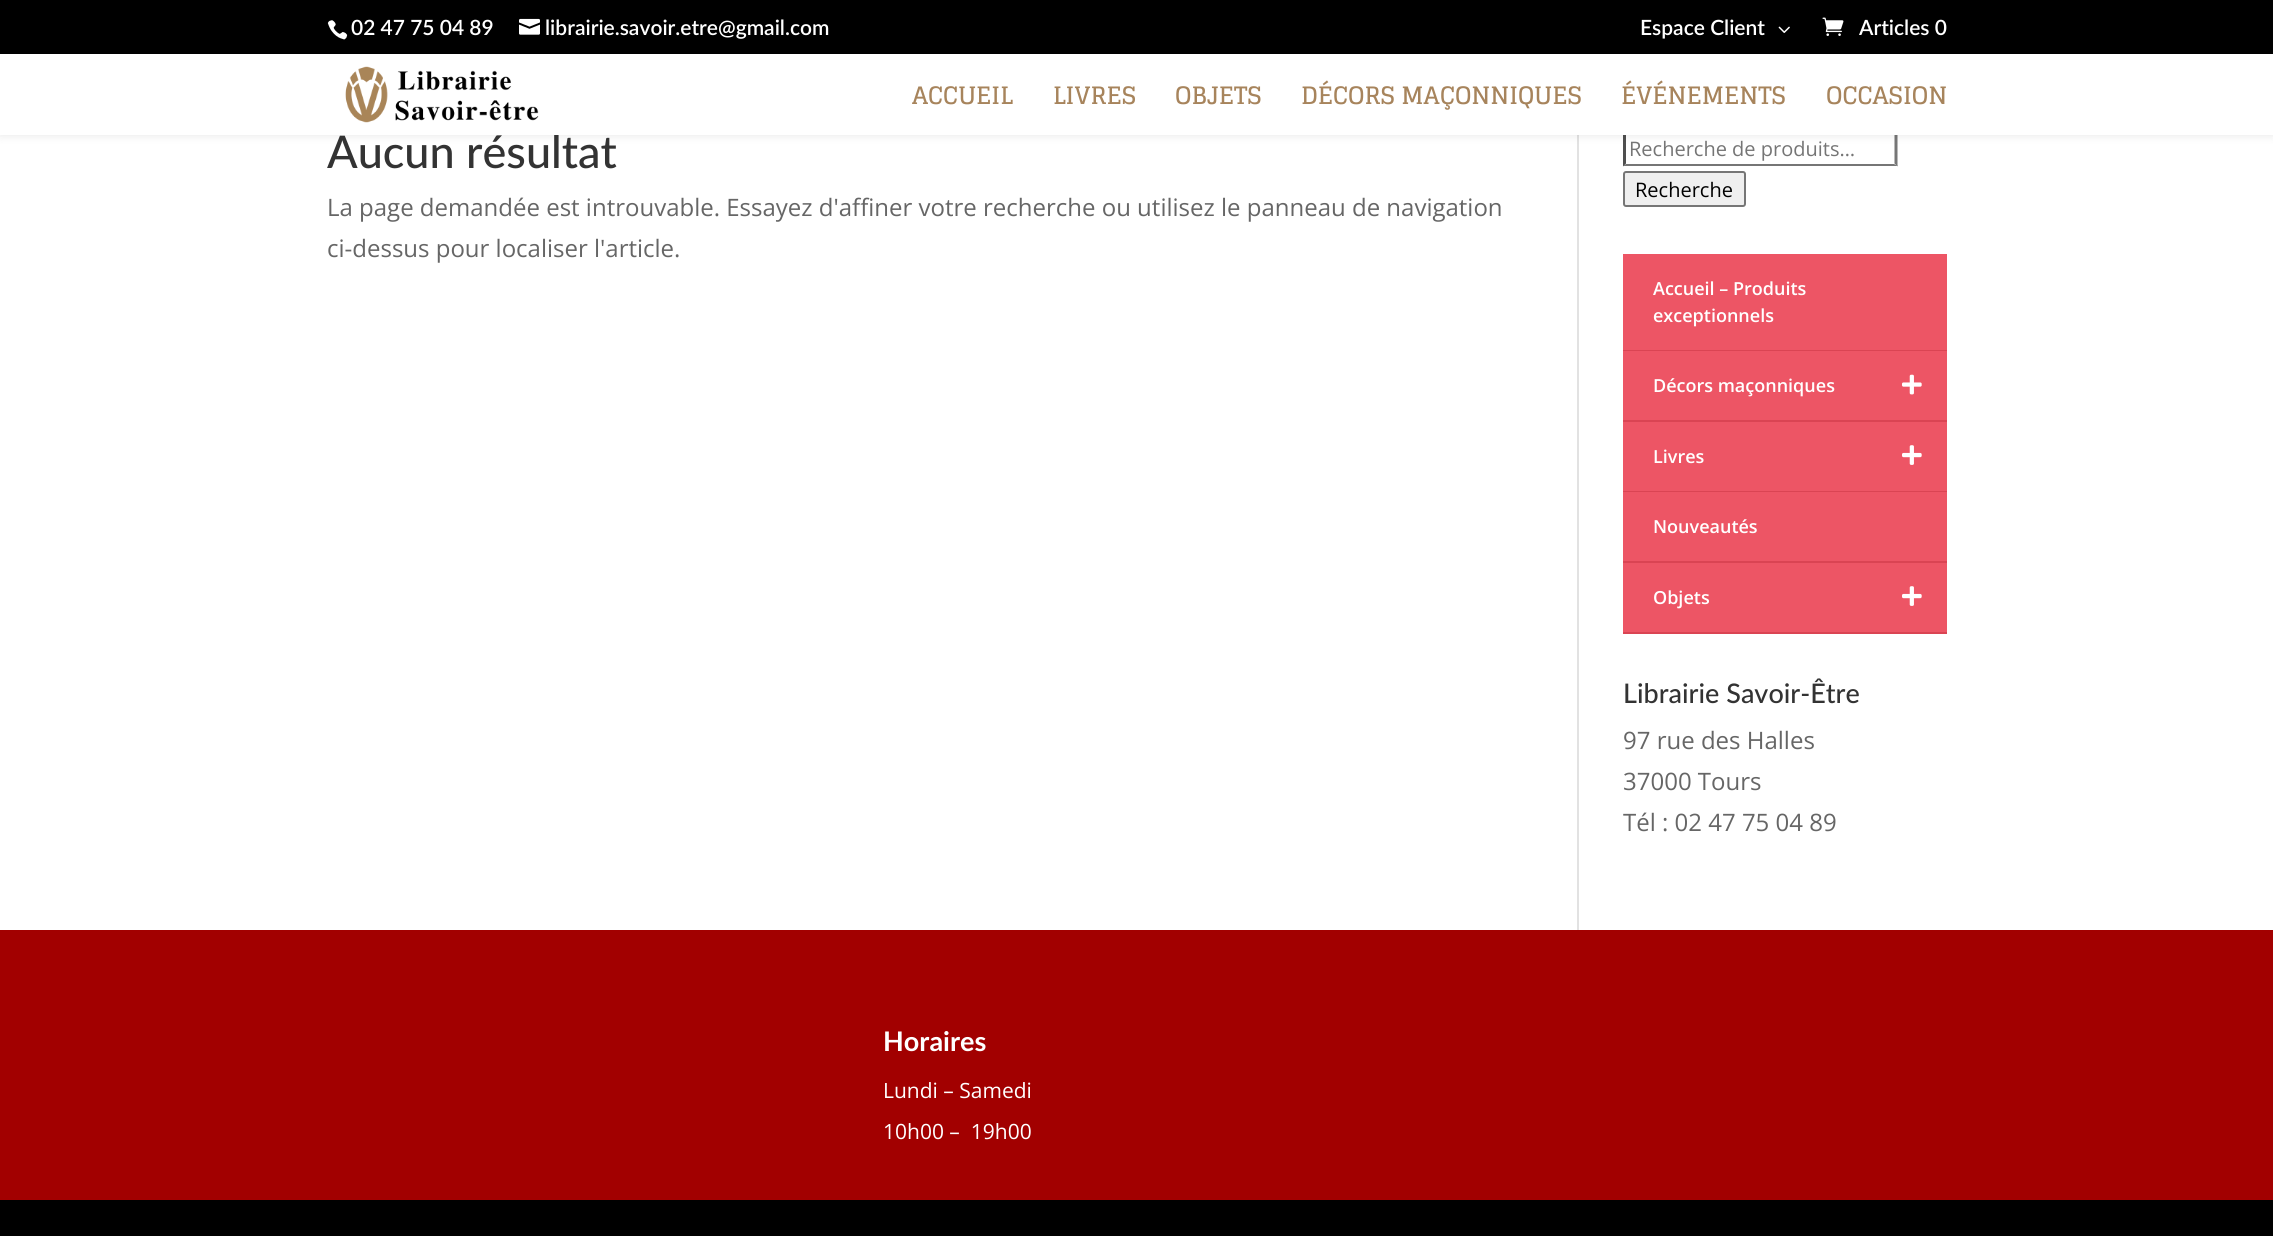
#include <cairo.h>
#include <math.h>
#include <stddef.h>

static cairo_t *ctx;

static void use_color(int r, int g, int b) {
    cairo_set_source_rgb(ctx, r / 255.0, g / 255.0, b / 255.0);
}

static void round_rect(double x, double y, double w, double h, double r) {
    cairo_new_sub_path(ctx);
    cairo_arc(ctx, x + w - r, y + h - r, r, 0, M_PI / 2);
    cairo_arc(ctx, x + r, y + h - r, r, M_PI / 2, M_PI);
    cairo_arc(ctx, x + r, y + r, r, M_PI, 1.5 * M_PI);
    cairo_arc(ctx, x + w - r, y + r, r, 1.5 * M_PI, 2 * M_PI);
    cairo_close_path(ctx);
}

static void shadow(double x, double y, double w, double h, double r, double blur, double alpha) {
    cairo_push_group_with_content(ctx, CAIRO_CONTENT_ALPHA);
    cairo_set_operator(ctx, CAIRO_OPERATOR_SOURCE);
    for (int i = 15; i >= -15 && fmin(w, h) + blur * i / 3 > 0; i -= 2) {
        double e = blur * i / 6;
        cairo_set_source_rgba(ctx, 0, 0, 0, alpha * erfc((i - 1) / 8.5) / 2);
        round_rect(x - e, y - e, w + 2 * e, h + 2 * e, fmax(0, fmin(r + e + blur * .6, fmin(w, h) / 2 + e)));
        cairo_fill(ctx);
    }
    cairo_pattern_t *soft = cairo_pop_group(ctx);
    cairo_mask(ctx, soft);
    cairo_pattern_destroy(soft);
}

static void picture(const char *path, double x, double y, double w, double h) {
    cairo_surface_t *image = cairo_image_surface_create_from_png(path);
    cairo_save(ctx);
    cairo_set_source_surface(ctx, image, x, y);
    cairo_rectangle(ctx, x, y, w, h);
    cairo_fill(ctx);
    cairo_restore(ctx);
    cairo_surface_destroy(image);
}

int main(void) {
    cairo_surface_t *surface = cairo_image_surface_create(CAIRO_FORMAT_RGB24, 2273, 1236);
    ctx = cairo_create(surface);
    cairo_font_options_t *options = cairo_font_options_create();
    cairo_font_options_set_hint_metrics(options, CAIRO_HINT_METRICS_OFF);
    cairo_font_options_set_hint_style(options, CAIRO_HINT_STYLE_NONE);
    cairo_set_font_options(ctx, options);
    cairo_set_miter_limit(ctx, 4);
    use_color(255, 255, 255);
    cairo_paint(ctx);
    use_color(118, 118, 118);
    cairo_new_path(ctx);
    cairo_move_to(ctx, 1897.5, 130.5);
    cairo_line_to(ctx, 1897.5, 166.5);
    cairo_line_to(ctx, 1894.5, 163.5);
    cairo_line_to(ctx, 1894.5, 133.5);
    cairo_close_path(ctx);
    cairo_fill(ctx);
    cairo_new_path(ctx);
    cairo_move_to(ctx, 1898, 166);
    cairo_line_to(ctx, 1623, 166);
    cairo_line_to(ctx, 1626, 164);
    cairo_line_to(ctx, 1894, 164);
    cairo_close_path(ctx);
    cairo_fill(ctx);
    use_color(79, 79, 79);
    cairo_new_path(ctx);
    cairo_move_to(ctx, 1623, 166.5);
    cairo_line_to(ctx, 1623, 130.5);
    cairo_line_to(ctx, 1626, 133.5);
    cairo_line_to(ctx, 1626, 163.5);
    cairo_close_path(ctx);
    cairo_fill(ctx);
    use_color(226, 226, 226);
    cairo_rectangle(ctx, 1577, 135, 2, 795);
    cairo_fill(ctx);
    use_color(0, 0, 0);
    shadow(0, 54, 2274, 81, 0, 5, 0.1);
    use_color(0, 0, 0);
    cairo_rectangle(ctx, 0, 0, 2273, 54);
    cairo_fill(ctx);
    picture("img1.png", 327, 20, 21, 20);
    cairo_select_font_face(ctx, "Lato SemiBold", CAIRO_FONT_SLANT_NORMAL, CAIRO_FONT_WEIGHT_NORMAL);
    cairo_set_font_size(ctx, 21);
    use_color(255, 255, 255);
    cairo_move_to(ctx, 351, 35);
    cairo_show_text(ctx, "02 47 75 04 89");
    picture("img2.png", 519, 18, 21, 17);
    cairo_move_to(ctx, 545, 35);
    cairo_show_text(ctx, "librairie.savoir.etre@gmail.com");
    cairo_move_to(ctx, 1640, 35);
    cairo_show_text(ctx, "Espace Client");
    picture("img3.png", 1778, 26, 12, 7);
    picture("img4.png", 1822, 17, 22, 19);
    cairo_move_to(ctx, 1859, 35);
    cairo_show_text(ctx, "Articles 0");
    cairo_select_font_face(ctx, "Lato Medium", CAIRO_FONT_SLANT_NORMAL, CAIRO_FONT_WEIGHT_NORMAL);
    cairo_set_font_size(ctx, 45);
    use_color(51, 51, 51);
    cairo_move_to(ctx, 327, 168);
    cairo_show_text(ctx, "Aucun résultat");
    use_color(255, 255, 255);
    cairo_rectangle(ctx, 0, 54, 2273, 81);
    cairo_fill(ctx);
    picture("img5.png", 345, 66, 194, 57);
    cairo_select_font_face(ctx, "Glegoo", CAIRO_FONT_SLANT_NORMAL, CAIRO_FONT_WEIGHT_BOLD);
    cairo_set_font_size(ctx, 24);
    use_color(167, 132, 92);
    cairo_move_to(ctx, 912, 104);
    cairo_show_text(ctx, "ACCUEIL");
    cairo_move_to(ctx, 1053, 104);
    cairo_show_text(ctx, "LIVRES");
    cairo_move_to(ctx, 1175, 104);
    cairo_show_text(ctx, "OBJETS");
    cairo_move_to(ctx, 1301, 104);
    cairo_show_text(ctx, "DÉCORS MAÇONNIQUES");
    cairo_move_to(ctx, 1621, 104);
    cairo_show_text(ctx, "ÉVÉNEMENTS");
    cairo_move_to(ctx, 1826, 104);
    cairo_show_text(ctx, "OCCASION");
    cairo_select_font_face(ctx, "Open Sans", CAIRO_FONT_SLANT_NORMAL, CAIRO_FONT_WEIGHT_NORMAL);
    use_color(102, 102, 102);
    cairo_move_to(ctx, 327, 216);
    cairo_show_text(ctx, "La page demandée est introuvable. Essayez d'affiner votre recherche ou utilisez le panneau de navigation");
    cairo_move_to(ctx, 327, 257);
    cairo_show_text(ctx, "ci-dessus pour localiser l'article.");
    cairo_set_font_size(ctx, 20);
    use_color(117, 117, 117);
    cairo_move_to(ctx, 1629, 156);
    cairo_show_text(ctx, "Recherche de produits…");
    use_color(239, 239, 239);
    round_rect(1624, 172, 121, 34, 2);
    cairo_fill_preserve(ctx);
    use_color(118, 118, 118);
    cairo_stroke(ctx);
    use_color(0, 0, 0);
    cairo_move_to(ctx, 1635, 197);
    cairo_show_text(ctx, "Recherche");
    use_color(237, 85, 101);
    cairo_rectangle(ctx, 1623, 254, 324, 96);
    cairo_fill(ctx);
    use_color(218, 68, 83);
    cairo_rectangle(ctx, 1623, 350, 324, 1);
    cairo_fill(ctx);
    cairo_select_font_face(ctx, "Open Sans SemiBold", CAIRO_FONT_SLANT_NORMAL, CAIRO_FONT_WEIGHT_NORMAL);
    cairo_set_font_size(ctx, 18);
    use_color(255, 255, 255);
    cairo_move_to(ctx, 1653, 295);
    cairo_show_text(ctx, "Accueil – Produits");
    cairo_move_to(ctx, 1653, 322);
    cairo_show_text(ctx, "exceptionnels");
    use_color(237, 85, 101);
    cairo_rectangle(ctx, 1623, 351, 324, 69);
    cairo_fill(ctx);
    use_color(218, 68, 83);
    cairo_rectangle(ctx, 1623, 420, 324, 2);
    cairo_fill(ctx);
    use_color(255, 255, 255);
    cairo_move_to(ctx, 1653, 392);
    cairo_show_text(ctx, "Décors maçonniques");
    picture("img6.png", 1902, 374, 20, 21);
    use_color(237, 85, 101);
    cairo_rectangle(ctx, 1623, 422, 324, 69);
    cairo_fill(ctx);
    use_color(218, 68, 83);
    cairo_rectangle(ctx, 1623, 491, 324, 1);
    cairo_fill(ctx);
    use_color(255, 255, 255);
    cairo_move_to(ctx, 1653, 463);
    cairo_show_text(ctx, "Livres");
    picture("img7.png", 1902, 445, 20, 20);
    use_color(237, 85, 101);
    cairo_rectangle(ctx, 1623, 492, 324, 69);
    cairo_fill(ctx);
    use_color(218, 68, 83);
    cairo_rectangle(ctx, 1623, 561, 324, 2);
    cairo_fill(ctx);
    use_color(255, 255, 255);
    cairo_move_to(ctx, 1653, 533);
    cairo_show_text(ctx, "Nouveautés");
    use_color(237, 85, 101);
    cairo_rectangle(ctx, 1623, 563, 324, 69);
    cairo_fill(ctx);
    use_color(218, 68, 83);
    cairo_rectangle(ctx, 1623, 632, 324, 2);
    cairo_fill(ctx);
    use_color(255, 255, 255);
    cairo_move_to(ctx, 1653, 604);
    cairo_show_text(ctx, "Objets");
    picture("img7.png", 1902, 586, 20, 20);
    cairo_select_font_face(ctx, "Lato Medium", CAIRO_FONT_SLANT_NORMAL, CAIRO_FONT_WEIGHT_NORMAL);
    cairo_set_font_size(ctx, 27);
    use_color(51, 51, 51);
    cairo_move_to(ctx, 1623, 703);
    cairo_show_text(ctx, "Librairie Savoir-Être");
    cairo_select_font_face(ctx, "Open Sans", CAIRO_FONT_SLANT_NORMAL, CAIRO_FONT_WEIGHT_NORMAL);
    cairo_set_font_size(ctx, 24);
    use_color(102, 102, 102);
    cairo_move_to(ctx, 1623, 749);
    cairo_show_text(ctx, "97 rue des Halles");
    cairo_move_to(ctx, 1623, 790);
    cairo_show_text(ctx, "37000 Tours");
    cairo_move_to(ctx, 1623, 831);
    cairo_show_text(ctx, "Tél : 02 47 75 04 89");
    use_color(162, 0, 0);
    cairo_rectangle(ctx, 0, 930, 2273, 270);
    cairo_fill(ctx);
    cairo_select_font_face(ctx, "Lato", CAIRO_FONT_SLANT_NORMAL, CAIRO_FONT_WEIGHT_BOLD);
    cairo_set_font_size(ctx, 27);
    use_color(255, 255, 255);
    cairo_move_to(ctx, 883, 1051);
    cairo_show_text(ctx, "Horaires");
    cairo_select_font_face(ctx, "Open Sans", CAIRO_FONT_SLANT_NORMAL, CAIRO_FONT_WEIGHT_NORMAL);
    cairo_set_font_size(ctx, 21);
    cairo_move_to(ctx, 883, 1098);
    cairo_show_text(ctx, "Lundi – Samedi");
    cairo_move_to(ctx, 883, 1139);
    cairo_show_text(ctx, "10h00 –  19h00");
    use_color(0, 0, 0);
    cairo_rectangle(ctx, 0, 1200, 2273, 36);
    cairo_fill(ctx);
    cairo_surface_write_to_png(surface, "result.png");
    cairo_font_options_destroy(options);
    cairo_destroy(ctx);
    cairo_surface_destroy(surface);
    return 0;
}
